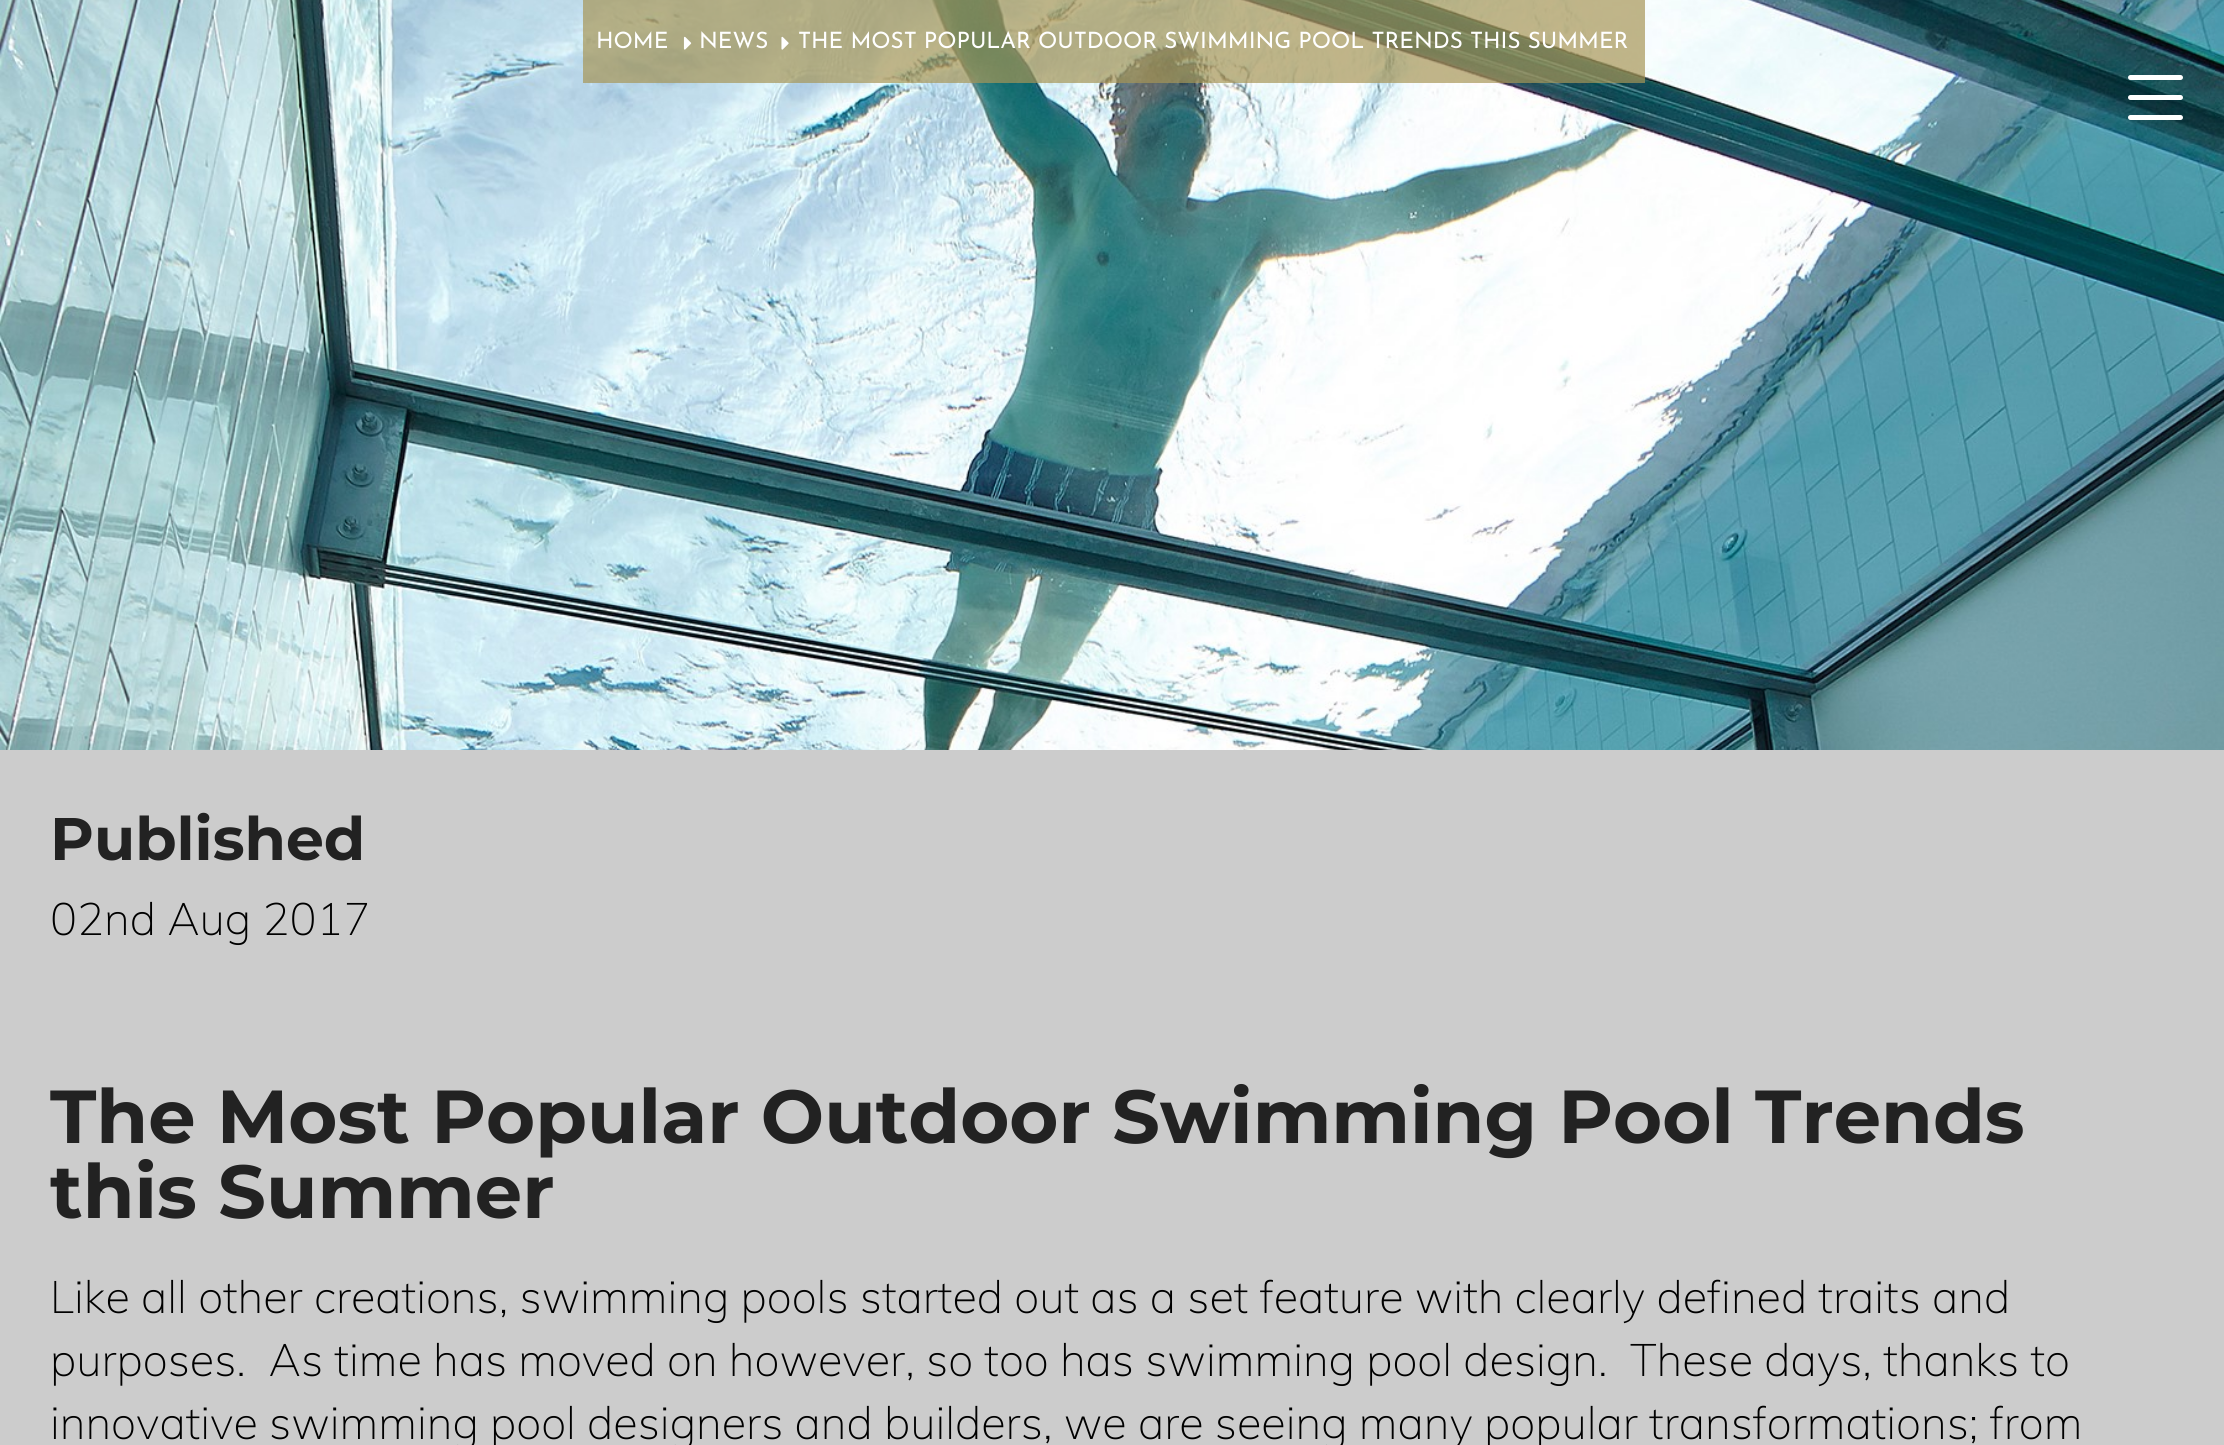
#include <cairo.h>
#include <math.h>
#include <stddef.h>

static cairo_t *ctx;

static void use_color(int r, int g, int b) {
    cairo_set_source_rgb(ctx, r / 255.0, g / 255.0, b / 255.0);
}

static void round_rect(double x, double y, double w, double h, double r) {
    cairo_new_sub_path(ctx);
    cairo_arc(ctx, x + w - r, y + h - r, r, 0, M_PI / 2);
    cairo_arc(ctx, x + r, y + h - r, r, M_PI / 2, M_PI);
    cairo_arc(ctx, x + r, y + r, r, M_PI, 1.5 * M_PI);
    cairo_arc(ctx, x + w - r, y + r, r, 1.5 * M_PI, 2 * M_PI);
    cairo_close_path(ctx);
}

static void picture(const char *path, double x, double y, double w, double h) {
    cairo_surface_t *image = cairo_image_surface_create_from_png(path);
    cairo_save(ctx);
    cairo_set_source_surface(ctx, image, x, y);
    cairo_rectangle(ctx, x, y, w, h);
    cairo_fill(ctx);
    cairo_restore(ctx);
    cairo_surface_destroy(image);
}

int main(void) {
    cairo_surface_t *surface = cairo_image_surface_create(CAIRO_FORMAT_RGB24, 2224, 1445);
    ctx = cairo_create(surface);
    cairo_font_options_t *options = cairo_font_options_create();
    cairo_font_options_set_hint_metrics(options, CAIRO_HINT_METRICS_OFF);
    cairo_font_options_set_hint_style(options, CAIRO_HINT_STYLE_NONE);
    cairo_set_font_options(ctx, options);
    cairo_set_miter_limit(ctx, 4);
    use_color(204, 204, 204);
    cairo_paint(ctx);
    picture("img3.png", 0, 0, 2224, 750);
    cairo_set_source_rgba(ctx, 0.655, 0.588, 0.341, 0.7);
    cairo_rectangle(ctx, 583, 0, 1062, 83);
    cairo_fill(ctx);
    cairo_select_font_face(ctx, "Josefin Sans", CAIRO_FONT_SLANT_NORMAL, CAIRO_FONT_WEIGHT_NORMAL);
    cairo_set_font_size(ctx, 22.5);
    use_color(255, 255, 255);
    cairo_move_to(ctx, 596, 48);
    cairo_show_text(ctx, "HOME");
    picture("img1.png", 683, 36, 9, 14);
    cairo_move_to(ctx, 699, 48);
    cairo_show_text(ctx, "NEWS");
    picture("img2.png", 781, 36, 8, 14);
    cairo_move_to(ctx, 798, 48);
    cairo_show_text(ctx, "THE MOST POPULAR OUTDOOR SWIMMING POOL TRENDS THIS SUMMER");
    cairo_select_font_face(ctx, "Montserrat", CAIRO_FONT_SLANT_NORMAL, CAIRO_FONT_WEIGHT_BOLD);
    cairo_set_font_size(ctx, 60);
    use_color(34, 34, 34);
    cairo_move_to(ctx, 50, 860);
    cairo_show_text(ctx, "Published");
    cairo_select_font_face(ctx, "Muli ExtraLight", CAIRO_FONT_SLANT_NORMAL, CAIRO_FONT_WEIGHT_NORMAL);
    cairo_set_font_size(ctx, 45);
    use_color(0, 0, 0);
    cairo_move_to(ctx, 50, 935);
    cairo_show_text(ctx, "02nd Aug 2017");
    cairo_select_font_face(ctx, "Montserrat", CAIRO_FONT_SLANT_NORMAL, CAIRO_FONT_WEIGHT_BOLD);
    cairo_set_font_size(ctx, 75);
    use_color(34, 34, 34);
    cairo_move_to(ctx, 50, 1143);
    cairo_show_text(ctx, "The Most Popular Outdoor Swimming Pool Trends");
    cairo_move_to(ctx, 50, 1218);
    cairo_show_text(ctx, "this Summer");
    cairo_select_font_face(ctx, "Muli ExtraLight", CAIRO_FONT_SLANT_NORMAL, CAIRO_FONT_WEIGHT_NORMAL);
    cairo_set_font_size(ctx, 45);
    use_color(0, 0, 0);
    cairo_move_to(ctx, 50, 1313);
    cairo_show_text(ctx, "Like all other creations, swimming pools started out as a set feature with clearly defined traits and");
    cairo_move_to(ctx, 50, 1376);
    cairo_show_text(ctx, "purposes.  As time has moved on however, so too has swimming pool design.  These days, thanks to");
    cairo_move_to(ctx, 50, 1439);
    cairo_show_text(ctx, "innovative swimming pool designers and builders, we are seeing many popular transformations; from");
    use_color(255, 255, 255);
    round_rect(2128, 95, 55, 5, 2.5);
    cairo_fill(ctx);
    round_rect(2128, 75, 55, 5, 2.5);
    cairo_fill(ctx);
    round_rect(2128, 115, 55, 5, 2.5);
    cairo_fill(ctx);
    cairo_surface_write_to_png(surface, "result.png");
    cairo_font_options_destroy(options);
    cairo_destroy(ctx);
    cairo_surface_destroy(surface);
    return 0;
}
